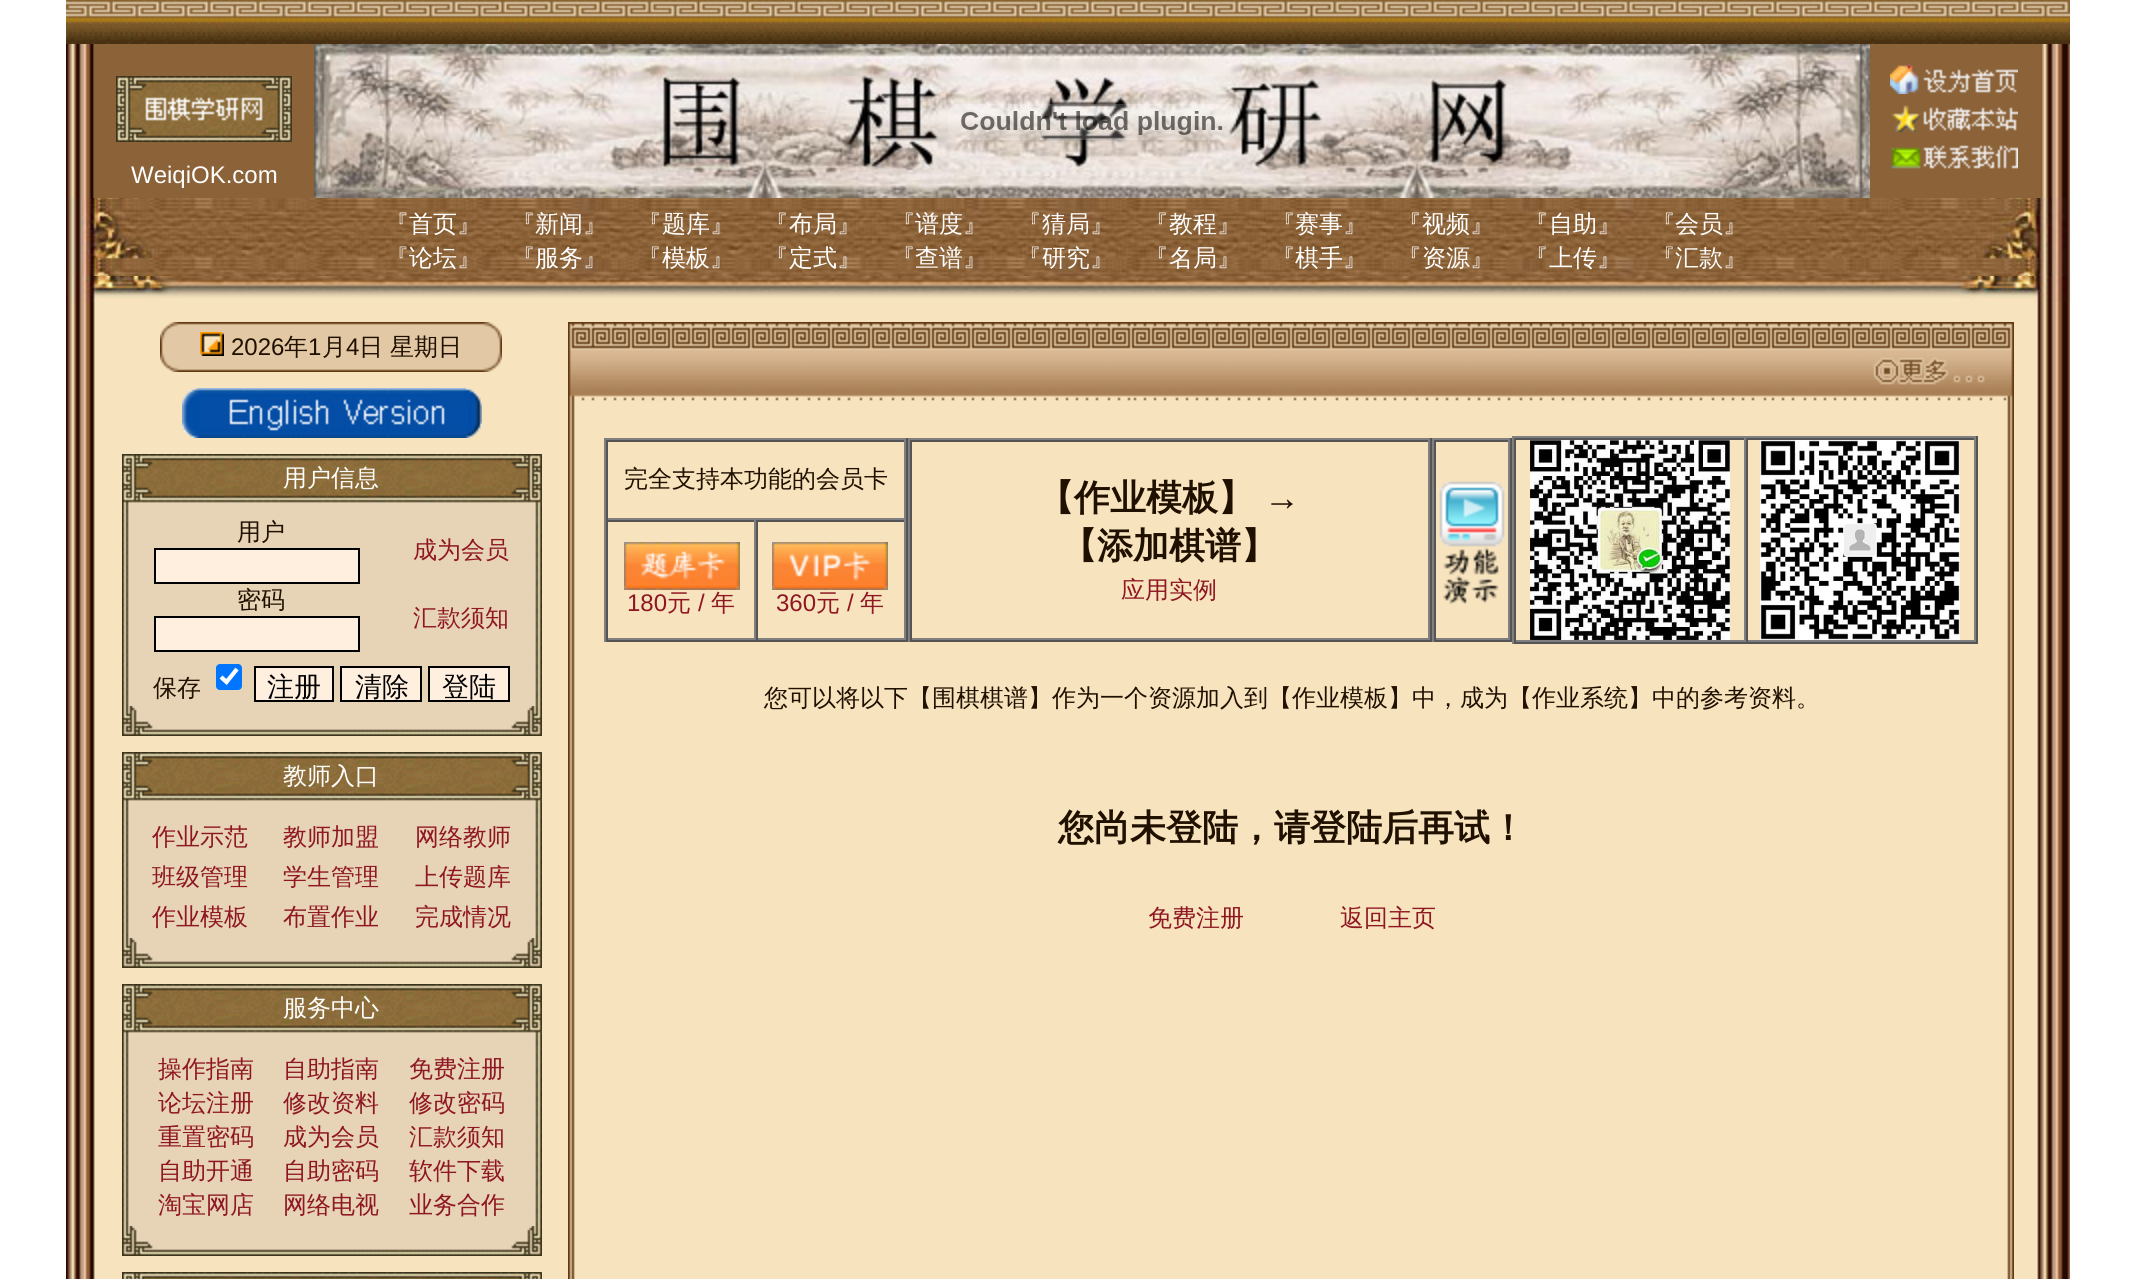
#include <cairo.h>
#include <math.h>
#include <stddef.h>

static cairo_t *ctx;

static void use_color(int r, int g, int b) {
    cairo_set_source_rgb(ctx, r / 255.0, g / 255.0, b / 255.0);
}

static void spaced_text(double x, double y, const char *s, double letter, double word) {
    cairo_move_to(ctx, x, y);
    while (*s) {
        char ch[5] = {0};
        int n = 0;
        do ch[n++] = *s++; while ((*s & 0xC0) == 0x80);
        cairo_show_text(ctx, ch);
        cairo_rel_move_to(ctx, letter + word * (*ch == ' '), 0);
    }
}

static void round_rect(double x, double y, double w, double h, double r) {
    cairo_new_sub_path(ctx);
    cairo_arc(ctx, x + w - r, y + h - r, r, 0, M_PI / 2);
    cairo_arc(ctx, x + r, y + h - r, r, M_PI / 2, M_PI);
    cairo_arc(ctx, x + r, y + r, r, M_PI, 1.5 * M_PI);
    cairo_arc(ctx, x + w - r, y + r, r, 1.5 * M_PI, 2 * M_PI);
    cairo_close_path(ctx);
}

static void picture(const char *path, double x, double y, double w, double h) {
    cairo_surface_t *image = cairo_image_surface_create_from_png(path);
    cairo_save(ctx);
    cairo_set_source_surface(ctx, image, x, y);
    cairo_rectangle(ctx, x, y, w, h);
    cairo_fill(ctx);
    cairo_restore(ctx);
    cairo_surface_destroy(image);
}

int main(void) {
    cairo_surface_t *surface = cairo_image_surface_create(CAIRO_FORMAT_RGB24, 2136, 1279);
    ctx = cairo_create(surface);
    cairo_font_options_t *options = cairo_font_options_create();
    cairo_font_options_set_hint_metrics(options, CAIRO_HINT_METRICS_OFF);
    cairo_font_options_set_hint_style(options, CAIRO_HINT_STYLE_NONE);
    cairo_set_font_options(ctx, options);
    cairo_set_miter_limit(ctx, 4);
    use_color(255, 255, 255);
    cairo_paint(ctx);
    picture("img1.png", 66, 0, 2004, 44);
    picture("img2.png", 66, 44, 2004, 154);
    use_color(140, 98, 56);
    cairo_rectangle(ctx, 94, 44, 220, 154);
    cairo_fill(ctx);
    picture("img3.png", 116, 76, 176, 66);
    cairo_select_font_face(ctx, "Liberation Sans", CAIRO_FONT_SLANT_NORMAL, CAIRO_FONT_WEIGHT_NORMAL);
    cairo_set_font_size(ctx, 24);
    use_color(255, 255, 255);
    cairo_move_to(ctx, 131, 183);
    cairo_show_text(ctx, "WeiqiOK.com");
    picture("img4.png", 314, 44, 1556, 154);
    picture("img5.png", 948, 104, 288, 36);
    use_color(140, 98, 56);
    cairo_rectangle(ctx, 1870, 44, 172, 154);
    cairo_fill(ctx);
    picture("img6.png", 1890, 64, 128, 30);
    picture("img7.png", 1891, 105, 127, 27);
    picture("img8.png", 1891, 145, 127, 24);
    picture("img9.png", 66, 198, 2004, 104);
    cairo_select_font_face(ctx, "WenQuanYi Zen Hei Medium", CAIRO_FONT_SLANT_NORMAL, CAIRO_FONT_WEIGHT_NORMAL);
    use_color(255, 255, 255);
    cairo_move_to(ctx, 385, 232);
    cairo_show_text(ctx, "『首页");
    spaced_text(457, 232, "』　 『", 0, -1);
    cairo_move_to(ctx, 535, 232);
    cairo_show_text(ctx, "新闻");
    spaced_text(583, 232, "』　 『", 0, -1);
    cairo_move_to(ctx, 662, 232);
    cairo_show_text(ctx, "题库");
    spaced_text(710, 232, "』　 『", 0, -1);
    cairo_move_to(ctx, 789, 232);
    cairo_show_text(ctx, "布局");
    spaced_text(837, 232, "』　 『", 0, -1);
    cairo_move_to(ctx, 915, 232);
    cairo_show_text(ctx, "谱度");
    spaced_text(963, 232, "』　 『", 0, -1);
    cairo_move_to(ctx, 1042, 232);
    cairo_show_text(ctx, "猜局");
    spaced_text(1090, 232, "』　 『", 0, -1);
    cairo_move_to(ctx, 1169, 232);
    cairo_show_text(ctx, "教程");
    spaced_text(1217, 232, "』　 『", 0, -1);
    cairo_move_to(ctx, 1295, 232);
    cairo_show_text(ctx, "赛事");
    spaced_text(1343, 232, "』　 『", 0, -1);
    cairo_move_to(ctx, 1422, 232);
    cairo_show_text(ctx, "视频");
    spaced_text(1470, 232, "』　 『", 0, -1);
    cairo_move_to(ctx, 1549, 232);
    cairo_show_text(ctx, "自助");
    spaced_text(1597, 232, "』　 『", 0, -1);
    cairo_move_to(ctx, 1675, 232);
    cairo_show_text(ctx, "会员』");
    cairo_move_to(ctx, 385, 266);
    cairo_show_text(ctx, "『论坛");
    spaced_text(457, 266, "』　 『", 0, -1);
    cairo_move_to(ctx, 535, 266);
    cairo_show_text(ctx, "服务");
    spaced_text(583, 266, "』　 『", 0, -1);
    cairo_move_to(ctx, 662, 266);
    cairo_show_text(ctx, "模板");
    spaced_text(710, 266, "』　 『", 0, -1);
    cairo_move_to(ctx, 789, 266);
    cairo_show_text(ctx, "定式");
    spaced_text(837, 266, "』　 『", 0, -1);
    cairo_move_to(ctx, 915, 266);
    cairo_show_text(ctx, "查谱");
    spaced_text(963, 266, "』　 『", 0, -1);
    cairo_move_to(ctx, 1042, 266);
    cairo_show_text(ctx, "研究");
    spaced_text(1090, 266, "』　 『", 0, -1);
    cairo_move_to(ctx, 1169, 266);
    cairo_show_text(ctx, "名局");
    spaced_text(1217, 266, "』　 『", 0, -1);
    cairo_move_to(ctx, 1295, 266);
    cairo_show_text(ctx, "棋手");
    spaced_text(1343, 266, "』　 『", 0, -1);
    cairo_move_to(ctx, 1422, 266);
    cairo_show_text(ctx, "资源");
    spaced_text(1470, 266, "』　 『", 0, -1);
    cairo_move_to(ctx, 1549, 266);
    cairo_show_text(ctx, "上传");
    spaced_text(1597, 266, "』　 『", 0, -1);
    cairo_move_to(ctx, 1675, 266);
    cairo_show_text(ctx, "汇款』");
    picture("img10.png", 66, 276, 2000, 26);
    picture("img11.png", 66, 302, 2004, 977);
    picture("img12.png", 160, 322, 342, 50);
    picture("img13.png", 200, 332, 24, 24);
    cairo_select_font_face(ctx, "Liberation Sans", CAIRO_FONT_SLANT_NORMAL, CAIRO_FONT_WEIGHT_NORMAL);
    use_color(32, 16, 0);
    cairo_move_to(ctx, 231, 355);
    cairo_show_text(ctx, "2026");
    cairo_select_font_face(ctx, "WenQuanYi Zen Hei Medium", CAIRO_FONT_SLANT_NORMAL, CAIRO_FONT_WEIGHT_NORMAL);
    cairo_move_to(ctx, 284, 355);
    cairo_show_text(ctx, "年");
    cairo_select_font_face(ctx, "Liberation Sans", CAIRO_FONT_SLANT_NORMAL, CAIRO_FONT_WEIGHT_NORMAL);
    cairo_move_to(ctx, 308, 355);
    cairo_show_text(ctx, "1");
    cairo_select_font_face(ctx, "WenQuanYi Zen Hei Medium", CAIRO_FONT_SLANT_NORMAL, CAIRO_FONT_WEIGHT_NORMAL);
    cairo_move_to(ctx, 322, 355);
    cairo_show_text(ctx, "月");
    cairo_select_font_face(ctx, "Liberation Sans", CAIRO_FONT_SLANT_NORMAL, CAIRO_FONT_WEIGHT_NORMAL);
    cairo_move_to(ctx, 346, 355);
    cairo_show_text(ctx, "4");
    cairo_select_font_face(ctx, "WenQuanYi Zen Hei Medium", CAIRO_FONT_SLANT_NORMAL, CAIRO_FONT_WEIGHT_NORMAL);
    cairo_move_to(ctx, 359, 355);
    cairo_show_text(ctx, "日");
    cairo_move_to(ctx, 390, 355);
    cairo_show_text(ctx, "星期日");
    picture("img14.png", 182, 388, 300, 50);
    picture("img15.png", 122, 454, 420, 50);
    use_color(255, 255, 255);
    cairo_move_to(ctx, 283, 486);
    cairo_show_text(ctx, "用户信息");
    picture("img16.png", 122, 504, 420, 202);
    use_color(32, 16, 0);
    cairo_move_to(ctx, 237, 540);
    cairo_show_text(ctx, "用户");
    use_color(255, 239, 223);
    cairo_rectangle(ctx, 155, 549, 204, 34);
    cairo_fill_preserve(ctx);
    use_color(0, 0, 0);
    cairo_stroke(ctx);
    use_color(143, 23, 35);
    cairo_move_to(ctx, 413, 558);
    cairo_show_text(ctx, "成为会员");
    use_color(32, 16, 0);
    cairo_move_to(ctx, 237, 608);
    cairo_show_text(ctx, "密码");
    use_color(255, 239, 223);
    cairo_rectangle(ctx, 155, 617, 204, 34);
    cairo_fill_preserve(ctx);
    use_color(0, 0, 0);
    cairo_stroke(ctx);
    use_color(143, 23, 35);
    cairo_move_to(ctx, 413, 626);
    cairo_show_text(ctx, "汇款须知");
    use_color(32, 16, 0);
    cairo_move_to(ctx, 153, 696);
    cairo_show_text(ctx, "保存");
    use_color(0, 117, 255);
    round_rect(216, 664, 26, 26, 4);
    cairo_fill(ctx);
    cairo_new_path(ctx);
    cairo_move_to(ctx, 221, 677);
    cairo_line_to(ctx, 226.5, 682);
    cairo_line_to(ctx, 237, 669);
    use_color(255, 255, 255);
    cairo_set_line_width(ctx, 4.2);
    cairo_stroke(ctx);
    use_color(255, 239, 223);
    cairo_rectangle(ctx, 255, 667, 78, 34);
    cairo_fill_preserve(ctx);
    use_color(0, 0, 0);
    cairo_set_line_width(ctx, 2);
    cairo_stroke(ctx);
    cairo_set_font_size(ctx, 27);
    cairo_move_to(ctx, 267, 696);
    cairo_show_text(ctx, "注册");
    use_color(255, 239, 223);
    cairo_rectangle(ctx, 341, 667, 80, 34);
    cairo_fill_preserve(ctx);
    use_color(0, 0, 0);
    cairo_stroke(ctx);
    cairo_move_to(ctx, 355, 696);
    cairo_show_text(ctx, "清除");
    use_color(255, 239, 223);
    cairo_rectangle(ctx, 429, 667, 80, 34);
    cairo_fill_preserve(ctx);
    use_color(0, 0, 0);
    cairo_stroke(ctx);
    cairo_move_to(ctx, 442, 696);
    cairo_show_text(ctx, "登陆");
    picture("img17.png", 122, 706, 420, 30);
    picture("img15.png", 122, 752, 420, 50);
    cairo_set_font_size(ctx, 24);
    use_color(255, 255, 255);
    cairo_move_to(ctx, 283, 784);
    cairo_show_text(ctx, "教师入口");
    picture("img18.png", 122, 802, 420, 136);
    use_color(143, 23, 35);
    cairo_move_to(ctx, 152, 845);
    cairo_show_text(ctx, "作业示范");
    cairo_move_to(ctx, 283, 845);
    cairo_show_text(ctx, "教师加盟");
    cairo_move_to(ctx, 415, 845);
    cairo_show_text(ctx, "网络教师");
    cairo_move_to(ctx, 152, 885);
    cairo_show_text(ctx, "班级管理");
    cairo_move_to(ctx, 283, 885);
    cairo_show_text(ctx, "学生管理");
    cairo_move_to(ctx, 415, 885);
    cairo_show_text(ctx, "上传题库");
    cairo_move_to(ctx, 152, 925);
    cairo_show_text(ctx, "作业模板");
    cairo_move_to(ctx, 283, 925);
    cairo_show_text(ctx, "布置作业");
    cairo_move_to(ctx, 415, 925);
    cairo_show_text(ctx, "完成情况");
    picture("img17.png", 122, 938, 420, 30);
    picture("img15.png", 122, 984, 420, 50);
    use_color(255, 255, 255);
    cairo_move_to(ctx, 283, 1016);
    cairo_show_text(ctx, "服务中心");
    picture("img19.png", 122, 1034, 420, 192);
    use_color(143, 23, 35);
    cairo_move_to(ctx, 158, 1077);
    cairo_show_text(ctx, "操作指南");
    cairo_move_to(ctx, 283, 1077);
    cairo_show_text(ctx, "自助指南");
    cairo_move_to(ctx, 409, 1077);
    cairo_show_text(ctx, "免费注册");
    cairo_move_to(ctx, 158, 1111);
    cairo_show_text(ctx, "论坛注册");
    cairo_move_to(ctx, 283, 1111);
    cairo_show_text(ctx, "修改资料");
    cairo_move_to(ctx, 409, 1111);
    cairo_show_text(ctx, "修改密码");
    cairo_move_to(ctx, 158, 1145);
    cairo_show_text(ctx, "重置密码");
    cairo_move_to(ctx, 283, 1145);
    cairo_show_text(ctx, "成为会员");
    cairo_move_to(ctx, 409, 1145);
    cairo_show_text(ctx, "汇款须知");
    cairo_move_to(ctx, 158, 1179);
    cairo_show_text(ctx, "自助开通");
    cairo_move_to(ctx, 283, 1179);
    cairo_show_text(ctx, "自助密码");
    cairo_move_to(ctx, 409, 1179);
    cairo_show_text(ctx, "软件下载");
    cairo_move_to(ctx, 158, 1213);
    cairo_show_text(ctx, "淘宝网店");
    cairo_move_to(ctx, 283, 1213);
    cairo_show_text(ctx, "网络电视");
    cairo_move_to(ctx, 409, 1213);
    cairo_show_text(ctx, "业务合作");
    picture("img17.png", 122, 1226, 420, 30);
    picture("img20.png", 122, 1272, 420, 7);
    picture("img21.png", 568, 322, 1446, 957);
    picture("img22.png", 569, 322, 1444, 79);
    use_color(128, 128, 128);
    cairo_rectangle(ctx, 604, 438, 908, 2);
    cairo_fill(ctx);
    use_color(85, 85, 85);
    cairo_rectangle(ctx, 906, 438, 2, 204);
    cairo_fill(ctx);
    cairo_rectangle(ctx, 604, 640, 304, 2);
    cairo_fill(ctx);
    use_color(128, 128, 128);
    cairo_rectangle(ctx, 604, 438, 2, 204);
    cairo_fill(ctx);
    use_color(85, 85, 85);
    cairo_rectangle(ctx, 606, 440, 300, 2);
    cairo_fill(ctx);
    use_color(128, 128, 128);
    cairo_rectangle(ctx, 904, 440, 2, 80);
    cairo_fill(ctx);
    cairo_rectangle(ctx, 606, 518, 300, 2);
    cairo_fill(ctx);
    use_color(85, 85, 85);
    cairo_rectangle(ctx, 606, 440, 2, 80);
    cairo_fill(ctx);
    use_color(32, 16, 0);
    cairo_move_to(ctx, 624, 487);
    cairo_show_text(ctx, "完全支持本功能的会员卡");
    use_color(85, 85, 85);
    cairo_rectangle(ctx, 606, 520, 300, 2);
    cairo_fill(ctx);
    use_color(128, 128, 128);
    cairo_rectangle(ctx, 754, 520, 2, 120);
    cairo_fill(ctx);
    cairo_rectangle(ctx, 606, 638, 150, 2);
    cairo_fill(ctx);
    use_color(85, 85, 85);
    cairo_rectangle(ctx, 606, 520, 2, 120);
    cairo_fill(ctx);
    picture("img23.png", 624, 542, 116, 48);
    cairo_select_font_face(ctx, "Liberation Sans", CAIRO_FONT_SLANT_NORMAL, CAIRO_FONT_WEIGHT_NORMAL);
    use_color(143, 23, 35);
    cairo_move_to(ctx, 627, 611);
    cairo_show_text(ctx, "180");
    cairo_select_font_face(ctx, "WenQuanYi Zen Hei Medium", CAIRO_FONT_SLANT_NORMAL, CAIRO_FONT_WEIGHT_NORMAL);
    cairo_move_to(ctx, 667, 611);
    cairo_show_text(ctx, "元");
    cairo_select_font_face(ctx, "Liberation Sans", CAIRO_FONT_SLANT_NORMAL, CAIRO_FONT_WEIGHT_NORMAL);
    cairo_move_to(ctx, 698, 611);
    cairo_show_text(ctx, "/");
    cairo_select_font_face(ctx, "WenQuanYi Zen Hei Medium", CAIRO_FONT_SLANT_NORMAL, CAIRO_FONT_WEIGHT_NORMAL);
    cairo_move_to(ctx, 711, 611);
    cairo_show_text(ctx, "年");
    use_color(128, 128, 128);
    cairo_rectangle(ctx, 904, 520, 2, 120);
    cairo_fill(ctx);
    cairo_rectangle(ctx, 756, 638, 150, 2);
    cairo_fill(ctx);
    use_color(85, 85, 85);
    cairo_rectangle(ctx, 756, 520, 2, 120);
    cairo_fill(ctx);
    picture("img24.png", 772, 542, 116, 48);
    cairo_select_font_face(ctx, "Liberation Sans", CAIRO_FONT_SLANT_NORMAL, CAIRO_FONT_WEIGHT_NORMAL);
    use_color(143, 23, 35);
    cairo_move_to(ctx, 776, 611);
    cairo_show_text(ctx, "360");
    cairo_select_font_face(ctx, "WenQuanYi Zen Hei Medium", CAIRO_FONT_SLANT_NORMAL, CAIRO_FONT_WEIGHT_NORMAL);
    cairo_move_to(ctx, 816, 611);
    cairo_show_text(ctx, "元");
    cairo_select_font_face(ctx, "Liberation Sans", CAIRO_FONT_SLANT_NORMAL, CAIRO_FONT_WEIGHT_NORMAL);
    cairo_move_to(ctx, 847, 611);
    cairo_show_text(ctx, "/");
    cairo_select_font_face(ctx, "WenQuanYi Zen Hei Medium", CAIRO_FONT_SLANT_NORMAL, CAIRO_FONT_WEIGHT_NORMAL);
    cairo_move_to(ctx, 860, 611);
    cairo_show_text(ctx, "年");
    use_color(85, 85, 85);
    cairo_rectangle(ctx, 1430, 438, 2, 204);
    cairo_fill(ctx);
    cairo_rectangle(ctx, 908, 640, 524, 2);
    cairo_fill(ctx);
    use_color(128, 128, 128);
    cairo_rectangle(ctx, 908, 438, 2, 204);
    cairo_fill(ctx);
    use_color(85, 85, 85);
    cairo_rectangle(ctx, 910, 440, 520, 2);
    cairo_fill(ctx);
    use_color(128, 128, 128);
    cairo_rectangle(ctx, 1428, 440, 2, 200);
    cairo_fill(ctx);
    cairo_rectangle(ctx, 910, 638, 520, 2);
    cairo_fill(ctx);
    use_color(85, 85, 85);
    cairo_rectangle(ctx, 910, 440, 2, 200);
    cairo_fill(ctx);
    cairo_select_font_face(ctx, "WenQuanYi Zen Hei", CAIRO_FONT_SLANT_NORMAL, CAIRO_FONT_WEIGHT_BOLD);
    cairo_set_font_size(ctx, 36);
    use_color(32, 16, 0);
    cairo_move_to(ctx, 1038, 510);
    cairo_show_text(ctx, "【作业模板】");
    cairo_select_font_face(ctx, "Liberation Sans", CAIRO_FONT_SLANT_NORMAL, CAIRO_FONT_WEIGHT_BOLD);
    cairo_move_to(ctx, 1264, 510);
    cairo_show_text(ctx, "→");
    cairo_select_font_face(ctx, "WenQuanYi Zen Hei", CAIRO_FONT_SLANT_NORMAL, CAIRO_FONT_WEIGHT_BOLD);
    cairo_move_to(ctx, 1061, 558);
    cairo_show_text(ctx, "【添加棋谱】");
    cairo_select_font_face(ctx, "WenQuanYi Zen Hei Medium", CAIRO_FONT_SLANT_NORMAL, CAIRO_FONT_WEIGHT_NORMAL);
    cairo_set_font_size(ctx, 24);
    use_color(143, 23, 35);
    cairo_move_to(ctx, 1121, 598);
    cairo_show_text(ctx, "应用实例");
    use_color(85, 85, 85);
    cairo_rectangle(ctx, 1510, 438, 2, 204);
    cairo_fill(ctx);
    cairo_rectangle(ctx, 1432, 640, 80, 2);
    cairo_fill(ctx);
    use_color(128, 128, 128);
    cairo_rectangle(ctx, 1432, 438, 2, 204);
    cairo_fill(ctx);
    use_color(85, 85, 85);
    cairo_rectangle(ctx, 1434, 440, 76, 2);
    cairo_fill(ctx);
    use_color(128, 128, 128);
    cairo_rectangle(ctx, 1508, 440, 2, 200);
    cairo_fill(ctx);
    cairo_rectangle(ctx, 1434, 638, 76, 2);
    cairo_fill(ctx);
    use_color(85, 85, 85);
    cairo_rectangle(ctx, 1434, 440, 2, 200);
    cairo_fill(ctx);
    picture("img25.png", 1439, 481, 66, 123);
    use_color(128, 128, 128);
    cairo_rectangle(ctx, 1512, 436, 466, 2);
    cairo_fill(ctx);
    use_color(85, 85, 85);
    cairo_rectangle(ctx, 1976, 436, 2, 208);
    cairo_fill(ctx);
    cairo_rectangle(ctx, 1512, 642, 466, 2);
    cairo_fill(ctx);
    use_color(128, 128, 128);
    cairo_rectangle(ctx, 1512, 436, 2, 208);
    cairo_fill(ctx);
    use_color(85, 85, 85);
    cairo_rectangle(ctx, 1514, 438, 462, 2);
    cairo_fill(ctx);
    use_color(128, 128, 128);
    cairo_rectangle(ctx, 1744, 438, 2, 204);
    cairo_fill(ctx);
    cairo_rectangle(ctx, 1514, 640, 232, 2);
    cairo_fill(ctx);
    use_color(85, 85, 85);
    cairo_rectangle(ctx, 1514, 438, 2, 204);
    cairo_fill(ctx);
    picture("img26.png", 1530, 440, 200, 200);
    use_color(128, 128, 128);
    cairo_rectangle(ctx, 1974, 438, 2, 204);
    cairo_fill(ctx);
    cairo_rectangle(ctx, 1746, 640, 230, 2);
    cairo_fill(ctx);
    use_color(85, 85, 85);
    cairo_rectangle(ctx, 1746, 438, 2, 204);
    cairo_fill(ctx);
    picture("img27.png", 1760, 440, 200, 200);
    use_color(32, 16, 0);
    cairo_move_to(ctx, 764, 706);
    cairo_show_text(ctx, "您可以将以下【围棋棋谱】作为一个资源加入到【作业模板】中，成为【作业系统】中的参考资料。");
    cairo_select_font_face(ctx, "WenQuanYi Zen Hei", CAIRO_FONT_SLANT_NORMAL, CAIRO_FONT_WEIGHT_BOLD);
    cairo_set_font_size(ctx, 36);
    cairo_move_to(ctx, 1058, 840);
    cairo_show_text(ctx, "您尚未登陆，请登陆后再试！");
    cairo_select_font_face(ctx, "WenQuanYi Zen Hei Medium", CAIRO_FONT_SLANT_NORMAL, CAIRO_FONT_WEIGHT_NORMAL);
    cairo_set_font_size(ctx, 24);
    use_color(143, 23, 35);
    cairo_move_to(ctx, 1148, 926);
    cairo_show_text(ctx, "免费注册");
    cairo_move_to(ctx, 1340, 926);
    cairo_show_text(ctx, "返回主页");
    cairo_surface_write_to_png(surface, "result.png");
    cairo_font_options_destroy(options);
    cairo_destroy(ctx);
    cairo_surface_destroy(surface);
    return 0;
}
